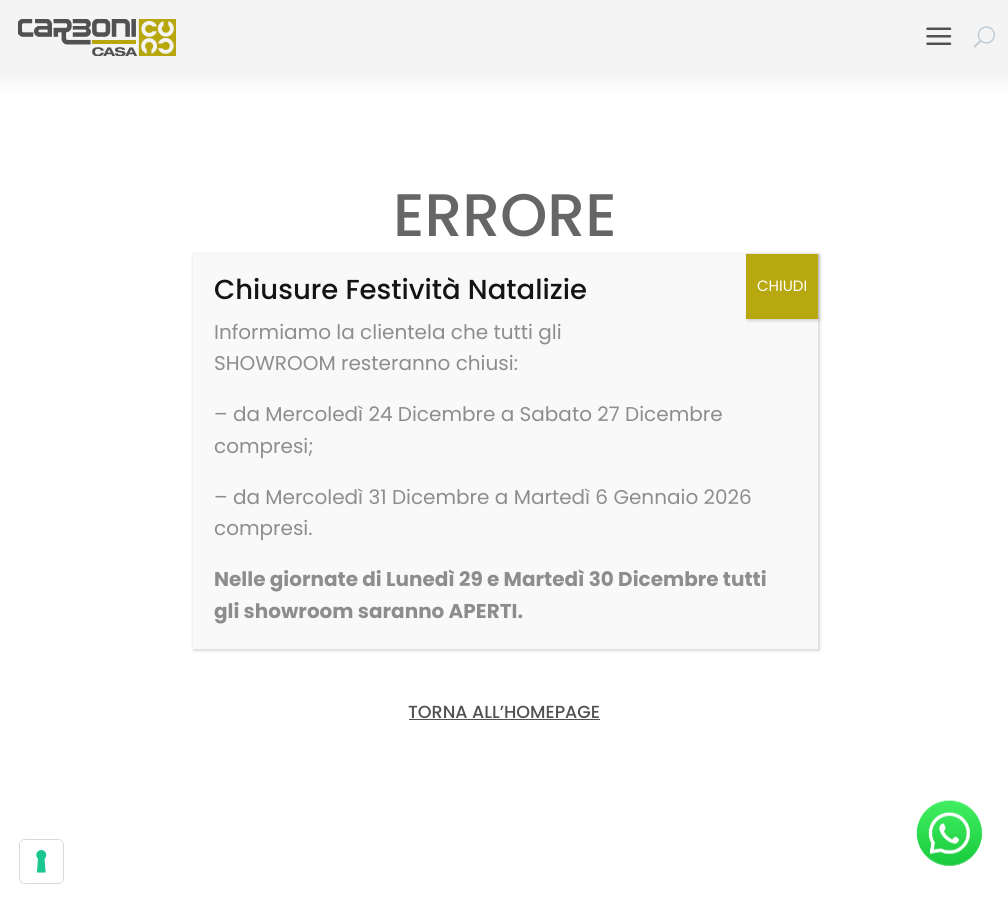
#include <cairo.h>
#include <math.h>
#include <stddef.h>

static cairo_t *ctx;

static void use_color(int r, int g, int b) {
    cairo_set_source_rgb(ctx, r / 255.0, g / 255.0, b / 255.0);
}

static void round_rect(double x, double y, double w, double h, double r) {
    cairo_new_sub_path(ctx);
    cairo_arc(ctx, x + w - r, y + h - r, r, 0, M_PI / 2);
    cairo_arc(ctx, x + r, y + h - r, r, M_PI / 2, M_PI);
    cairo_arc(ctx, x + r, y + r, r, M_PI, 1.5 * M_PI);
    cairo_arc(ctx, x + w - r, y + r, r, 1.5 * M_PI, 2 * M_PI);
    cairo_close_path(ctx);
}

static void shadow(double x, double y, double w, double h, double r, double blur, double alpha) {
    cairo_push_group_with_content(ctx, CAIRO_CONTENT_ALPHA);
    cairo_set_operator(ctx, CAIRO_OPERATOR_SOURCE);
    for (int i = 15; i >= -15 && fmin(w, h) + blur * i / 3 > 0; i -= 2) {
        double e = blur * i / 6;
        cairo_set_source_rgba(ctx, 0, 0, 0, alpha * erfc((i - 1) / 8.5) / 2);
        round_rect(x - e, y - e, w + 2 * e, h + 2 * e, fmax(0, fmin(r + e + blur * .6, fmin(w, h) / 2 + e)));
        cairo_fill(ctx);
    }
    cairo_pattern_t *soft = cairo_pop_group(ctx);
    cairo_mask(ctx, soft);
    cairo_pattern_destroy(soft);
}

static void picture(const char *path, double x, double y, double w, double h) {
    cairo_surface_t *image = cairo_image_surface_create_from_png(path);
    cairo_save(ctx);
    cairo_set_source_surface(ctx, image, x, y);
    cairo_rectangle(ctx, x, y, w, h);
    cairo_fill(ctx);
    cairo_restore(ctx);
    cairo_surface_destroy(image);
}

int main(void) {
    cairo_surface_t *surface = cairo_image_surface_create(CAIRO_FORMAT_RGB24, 1008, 902);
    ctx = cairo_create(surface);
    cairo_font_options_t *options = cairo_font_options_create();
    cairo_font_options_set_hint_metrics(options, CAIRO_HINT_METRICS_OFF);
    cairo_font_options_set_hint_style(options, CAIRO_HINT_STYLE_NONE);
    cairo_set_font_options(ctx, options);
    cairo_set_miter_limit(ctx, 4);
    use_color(255, 255, 255);
    cairo_paint(ctx);
    use_color(0, 0, 0);
    shadow(0, 0, 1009, 75, 0, 12.5, 0.1);
    use_color(244, 244, 244);
    cairo_rectangle(ctx, 0, 0, 1008, 75);
    cairo_fill(ctx);
    picture("img1.png", 18, 19, 158, 37);
    picture("img2.png", 926, 27, 26, 18);
    picture("img3.png", 973, 26, 22, 22);
    cairo_select_font_face(ctx, "Poppins Medium", CAIRO_FONT_SLANT_NORMAL, CAIRO_FONT_WEIGHT_NORMAL);
    cairo_set_font_size(ctx, 60);
    use_color(102, 102, 102);
    cairo_move_to(ctx, 393, 236);
    cairo_show_text(ctx, "ERRORE");
    picture("img4.png", 255, 268, 499, 212);
    cairo_set_font_size(ctx, 17.5);
    use_color(81, 81, 84);
    cairo_move_to(ctx, 408, 718);
    cairo_show_text(ctx, "TORNA ALL’HOMEPAGE");
    cairo_rectangle(ctx, 409, 719, 191, 1);
    cairo_fill(ctx);
    cairo_save(ctx);
    cairo_set_fill_rule(ctx, CAIRO_FILL_RULE_EVEN_ODD);
    cairo_new_path(ctx);
    cairo_move_to(ctx, 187, 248);
    cairo_line_to(ctx, 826, 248);
    cairo_line_to(ctx, 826, 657);
    cairo_line_to(ctx, 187, 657);
    cairo_close_path(ctx);
    cairo_move_to(ctx, 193, 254);
    cairo_line_to(ctx, 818, 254);
    cairo_line_to(ctx, 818, 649);
    cairo_line_to(ctx, 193, 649);
    cairo_close_path(ctx);
    cairo_clip(ctx);
    use_color(5, 5, 5);
    shadow(194, 255, 625, 395, 0, 2, 0.23);
    cairo_restore(ctx);
    cairo_set_source_rgba(ctx, 0.976, 0.976, 0.976, 0.99);
    cairo_rectangle(ctx, 193, 254, 625, 395);
    cairo_fill(ctx);
    cairo_set_font_size(ctx, 27.5);
    use_color(20, 20, 20);
    cairo_move_to(ctx, 214, 299);
    cairo_show_text(ctx, "Chiusure Festività Natalizie");
    cairo_select_font_face(ctx, "Poppins", CAIRO_FONT_SLANT_NORMAL, CAIRO_FONT_WEIGHT_NORMAL);
    cairo_set_font_size(ctx, 20);
    use_color(141, 141, 141);
    cairo_move_to(ctx, 214, 339);
    cairo_show_text(ctx, "Informiamo la clientela che tutti gli");
    cairo_move_to(ctx, 214, 370);
    cairo_show_text(ctx, "SHOWROOM resteranno chiusi:");
    cairo_move_to(ctx, 214, 421);
    cairo_show_text(ctx, "– da Mercoledì 24 Dicembre a Sabato 27 Dicembre");
    cairo_move_to(ctx, 214, 453);
    cairo_show_text(ctx, "compresi;");
    cairo_move_to(ctx, 214, 504);
    cairo_show_text(ctx, "– da Mercoledì 31 Dicembre a Martedì 6 Gennaio 2026");
    cairo_move_to(ctx, 214, 535);
    cairo_show_text(ctx, "compresi.");
    cairo_select_font_face(ctx, "Poppins", CAIRO_FONT_SLANT_NORMAL, CAIRO_FONT_WEIGHT_BOLD);
    cairo_move_to(ctx, 214, 586);
    cairo_show_text(ctx, "Nelle giornate di Lunedì 29 e Martedì 30 Dicembre tutti");
    cairo_move_to(ctx, 214, 618);
    cairo_show_text(ctx, "gli showroom saranno APERTI.");
    use_color(5, 5, 5);
    shadow(748, 255, 71, 65, 0, 2, 0.23);
    use_color(184, 168, 16);
    cairo_rectangle(ctx, 746, 254, 72, 65);
    cairo_fill(ctx);
    cairo_select_font_face(ctx, "Poppins", CAIRO_FONT_SLANT_NORMAL, CAIRO_FONT_WEIGHT_NORMAL);
    cairo_set_font_size(ctx, 15);
    use_color(255, 255, 255);
    cairo_move_to(ctx, 757, 291);
    cairo_show_text(ctx, "CHIUDI");
    round_rect(19.5, 839.5, 44, 44, 5.5);
    use_color(217, 217, 217);
    cairo_set_line_width(ctx, 1);
    cairo_stroke(ctx);
    use_color(255, 255, 255);
    round_rect(20, 840, 43, 43, 5);
    cairo_fill(ctx);
    picture("img5.png", 36, 850, 11, 23);
    picture("img6.png", 916, 799, 66, 67);
    cairo_surface_write_to_png(surface, "result.png");
    cairo_font_options_destroy(options);
    cairo_destroy(ctx);
    cairo_surface_destroy(surface);
    return 0;
}
